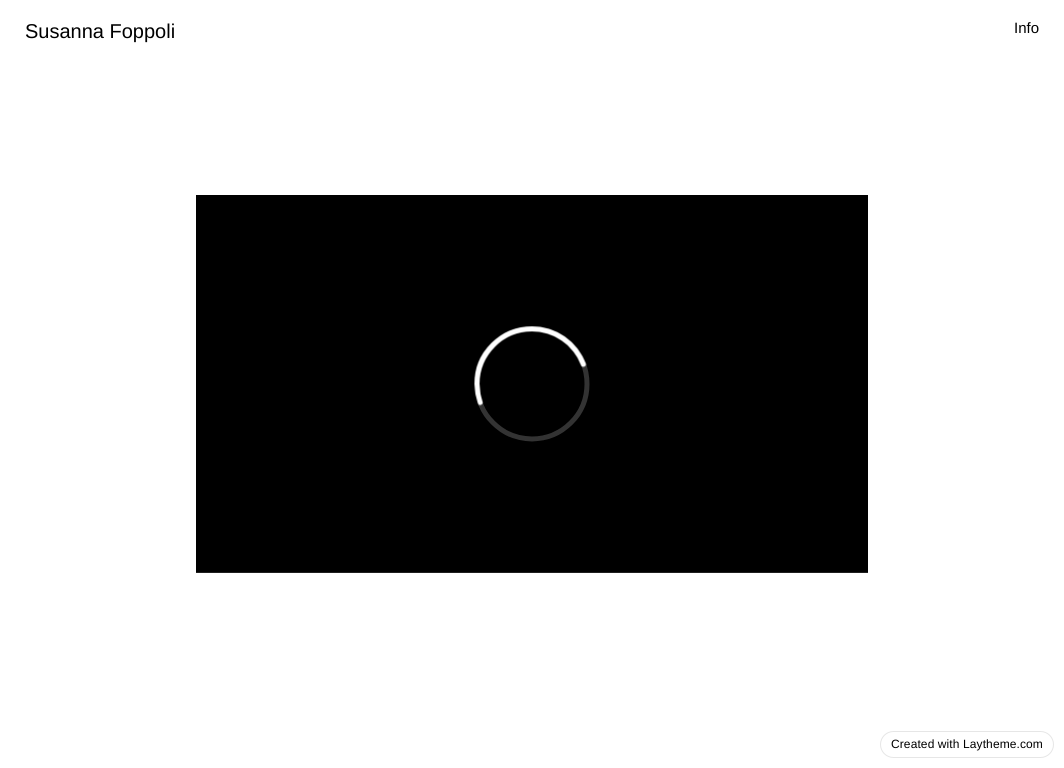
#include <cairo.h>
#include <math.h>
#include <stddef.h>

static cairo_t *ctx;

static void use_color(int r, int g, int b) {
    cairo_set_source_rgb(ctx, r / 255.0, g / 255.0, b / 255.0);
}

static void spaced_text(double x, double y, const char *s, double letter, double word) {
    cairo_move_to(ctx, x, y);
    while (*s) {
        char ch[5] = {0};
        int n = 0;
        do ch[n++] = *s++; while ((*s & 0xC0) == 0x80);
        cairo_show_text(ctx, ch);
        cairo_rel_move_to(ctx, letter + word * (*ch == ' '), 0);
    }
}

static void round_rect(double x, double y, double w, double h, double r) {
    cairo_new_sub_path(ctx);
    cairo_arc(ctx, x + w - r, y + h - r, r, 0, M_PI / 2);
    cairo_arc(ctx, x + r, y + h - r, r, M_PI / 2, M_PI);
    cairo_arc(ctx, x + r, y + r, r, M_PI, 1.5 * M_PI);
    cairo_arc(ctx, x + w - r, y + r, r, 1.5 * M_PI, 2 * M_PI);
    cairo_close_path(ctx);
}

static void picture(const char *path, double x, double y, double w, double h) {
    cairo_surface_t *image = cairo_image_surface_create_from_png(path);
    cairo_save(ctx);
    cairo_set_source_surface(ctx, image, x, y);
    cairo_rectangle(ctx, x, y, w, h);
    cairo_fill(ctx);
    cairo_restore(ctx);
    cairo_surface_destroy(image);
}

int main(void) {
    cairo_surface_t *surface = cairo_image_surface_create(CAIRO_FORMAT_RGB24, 1064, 768);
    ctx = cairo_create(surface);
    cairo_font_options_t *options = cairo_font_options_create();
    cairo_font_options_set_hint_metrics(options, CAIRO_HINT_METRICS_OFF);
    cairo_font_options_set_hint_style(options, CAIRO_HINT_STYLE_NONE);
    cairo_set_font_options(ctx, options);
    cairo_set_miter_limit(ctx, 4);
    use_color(255, 255, 255);
    cairo_paint(ctx);
    cairo_select_font_face(ctx, "Liberation Sans", CAIRO_FONT_SLANT_NORMAL, CAIRO_FONT_WEIGHT_NORMAL);
    cairo_set_font_size(ctx, 20);
    use_color(0, 0, 0);
    cairo_move_to(ctx, 25, 38);
    cairo_show_text(ctx, "Susanna Foppoli");
    cairo_set_font_size(ctx, 15);
    cairo_move_to(ctx, 1014, 33);
    cairo_show_text(ctx, "Info");
    picture("img1.png", 196, 195, 672, 378);
    round_rect(880.5, 731.5, 173, 26, 13);
    use_color(230, 230, 230);
    cairo_set_line_width(ctx, 1);
    cairo_stroke(ctx);
    cairo_set_font_size(ctx, 12);
    use_color(0, 0, 0);
    spaced_text(891, 748, "Created with Laytheme.com", 0.1, 0);
    cairo_surface_write_to_png(surface, "result.png");
    cairo_font_options_destroy(options);
    cairo_destroy(ctx);
    cairo_surface_destroy(surface);
    return 0;
}
